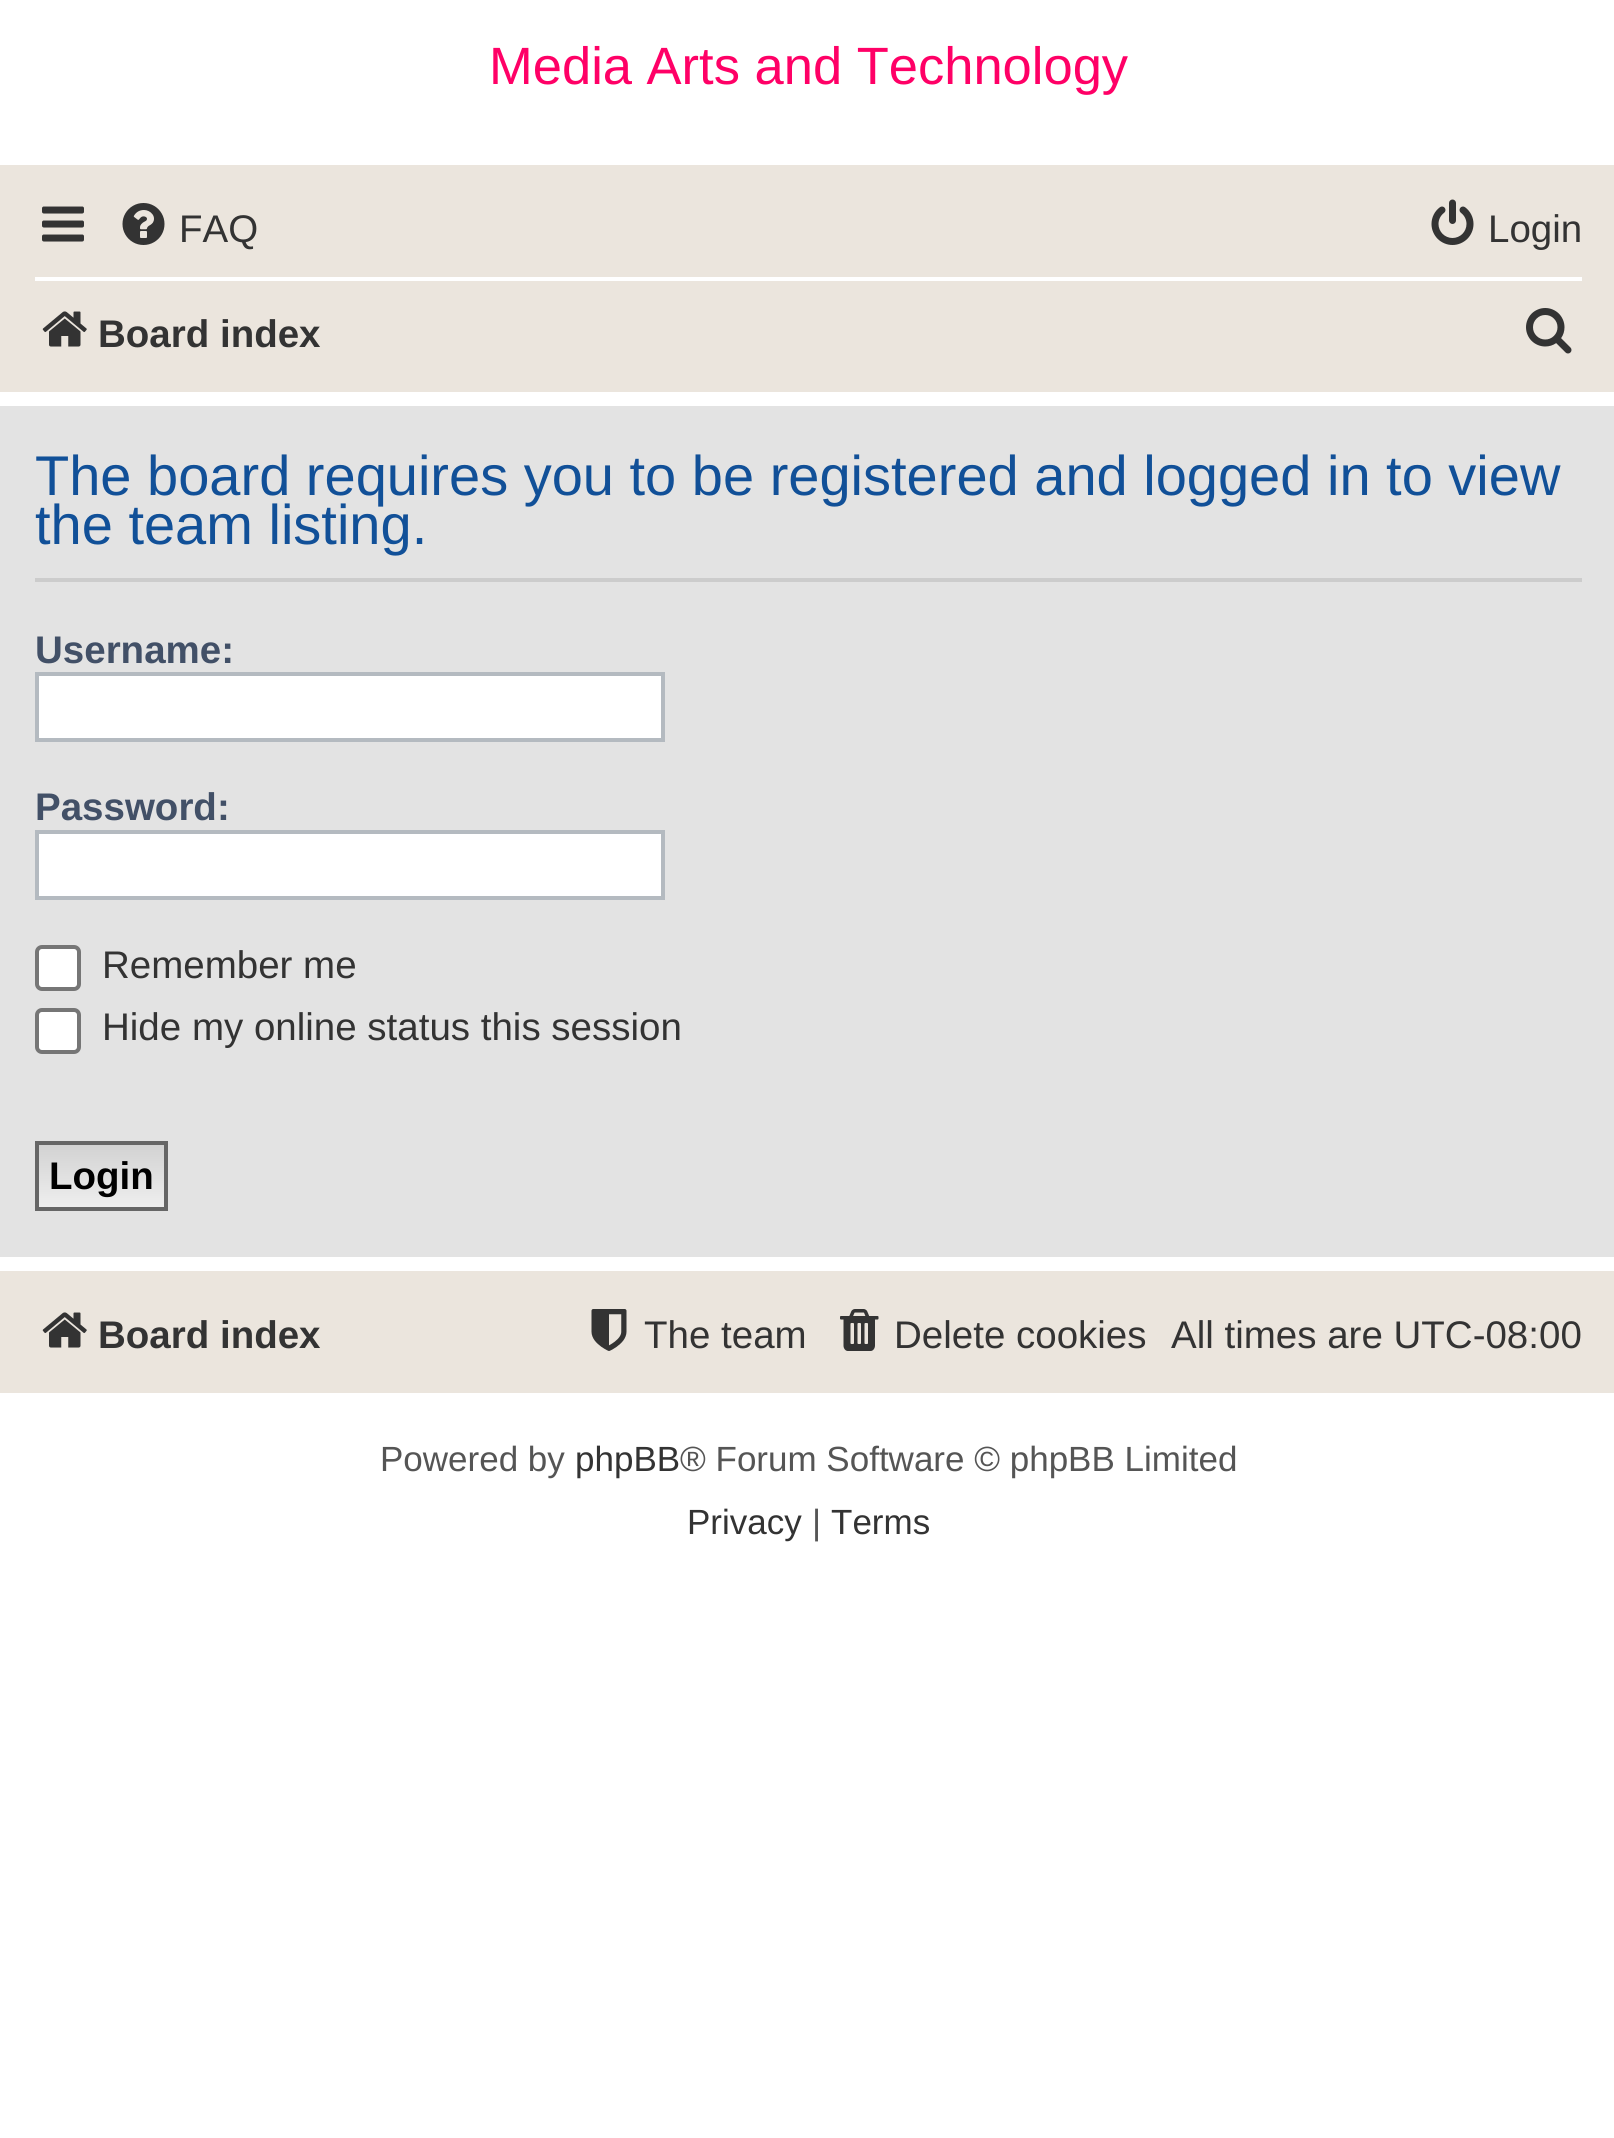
#include <cairo.h>
#include <math.h>
#include <stddef.h>

static cairo_t *ctx;

static void use_color(int r, int g, int b) {
    cairo_set_source_rgb(ctx, r / 255.0, g / 255.0, b / 255.0);
}

static void round_rect(double x, double y, double w, double h, double r) {
    cairo_new_sub_path(ctx);
    cairo_arc(ctx, x + w - r, y + h - r, r, 0, M_PI / 2);
    cairo_arc(ctx, x + r, y + h - r, r, M_PI / 2, M_PI);
    cairo_arc(ctx, x + r, y + r, r, M_PI, 1.5 * M_PI);
    cairo_arc(ctx, x + w - r, y + r, r, 1.5 * M_PI, 2 * M_PI);
    cairo_close_path(ctx);
}

static void picture(const char *path, double x, double y, double w, double h) {
    cairo_surface_t *image = cairo_image_surface_create_from_png(path);
    cairo_save(ctx);
    cairo_set_source_surface(ctx, image, x, y);
    cairo_rectangle(ctx, x, y, w, h);
    cairo_fill(ctx);
    cairo_restore(ctx);
    cairo_surface_destroy(image);
}

int main(void) {
    cairo_surface_t *surface = cairo_image_surface_create(CAIRO_FORMAT_RGB24, 1614, 2138);
    ctx = cairo_create(surface);
    cairo_font_options_t *options = cairo_font_options_create();
    cairo_font_options_set_hint_metrics(options, CAIRO_HINT_METRICS_OFF);
    cairo_font_options_set_hint_style(options, CAIRO_HINT_STYLE_NONE);
    cairo_set_font_options(ctx, options);
    cairo_set_miter_limit(ctx, 4);
    cairo_pattern_t *gradient;
    use_color(255, 255, 255);
    cairo_paint(ctx);
    cairo_select_font_face(ctx, "Liberation Sans", CAIRO_FONT_SLANT_NORMAL, CAIRO_FONT_WEIGHT_NORMAL);
    cairo_set_font_size(ctx, 52.5);
    use_color(255, 0, 102);
    cairo_move_to(ctx, 489, 84);
    cairo_show_text(ctx, "Media Arts and Technology");
    use_color(235, 229, 221);
    cairo_rectangle(ctx, 0, 165, 1614, 227);
    cairo_fill(ctx);
    picture("img1.png", 42, 206, 42, 36);
    picture("img2.png", 122, 203, 43, 42);
    cairo_set_font_size(ctx, 38.5);
    use_color(51, 51, 51);
    cairo_move_to(ctx, 179, 242);
    cairo_show_text(ctx, "FAQ");
    picture("img3.png", 1431, 199, 43, 46);
    cairo_move_to(ctx, 1488, 242);
    cairo_show_text(ctx, "Login");
    use_color(255, 255, 255);
    cairo_rectangle(ctx, 35, 277, 1547, 4);
    cairo_fill(ctx);
    picture("img4.png", 42, 311, 45, 36);
    cairo_select_font_face(ctx, "Liberation Sans", CAIRO_FONT_SLANT_NORMAL, CAIRO_FONT_WEIGHT_BOLD);
    use_color(51, 51, 51);
    cairo_move_to(ctx, 98, 347);
    cairo_show_text(ctx, "Board index");
    picture("img5.png", 1526, 308, 46, 46);
    use_color(227, 227, 227);
    cairo_rectangle(ctx, 0, 406, 1614, 851);
    cairo_fill(ctx);
    use_color(204, 204, 204);
    cairo_rectangle(ctx, 35, 578, 1547, 4);
    cairo_fill(ctx);
    cairo_select_font_face(ctx, "Liberation Sans", CAIRO_FONT_SLANT_NORMAL, CAIRO_FONT_WEIGHT_NORMAL);
    cairo_set_font_size(ctx, 56);
    use_color(17, 80, 152);
    cairo_move_to(ctx, 35, 495);
    cairo_show_text(ctx, "The board requires you to be registered and logged in to view");
    cairo_move_to(ctx, 35, 544);
    cairo_show_text(ctx, "the team listing.");
    cairo_select_font_face(ctx, "Liberation Sans", CAIRO_FONT_SLANT_NORMAL, CAIRO_FONT_WEIGHT_BOLD);
    cairo_set_font_size(ctx, 38.5);
    use_color(66, 80, 103);
    cairo_move_to(ctx, 35, 663);
    cairo_show_text(ctx, "Username:");
    use_color(255, 255, 255);
    cairo_rectangle(ctx, 37, 674, 626, 66);
    cairo_fill_preserve(ctx);
    use_color(180, 186, 192);
    cairo_set_line_width(ctx, 4);
    cairo_stroke(ctx);
    use_color(66, 80, 103);
    cairo_move_to(ctx, 35, 820);
    cairo_show_text(ctx, "Password:");
    use_color(255, 255, 255);
    cairo_rectangle(ctx, 37, 832, 626, 66);
    cairo_fill_preserve(ctx);
    use_color(180, 186, 192);
    cairo_stroke(ctx);
    use_color(255, 255, 255);
    round_rect(37, 947, 42, 42, 5);
    cairo_fill_preserve(ctx);
    use_color(118, 118, 118);
    cairo_stroke(ctx);
    cairo_select_font_face(ctx, "Liberation Sans", CAIRO_FONT_SLANT_NORMAL, CAIRO_FONT_WEIGHT_NORMAL);
    use_color(51, 51, 51);
    cairo_move_to(ctx, 102, 978);
    cairo_show_text(ctx, "Remember me");
    use_color(255, 255, 255);
    round_rect(37, 1010, 42, 42, 5);
    cairo_fill_preserve(ctx);
    use_color(118, 118, 118);
    cairo_stroke(ctx);
    use_color(51, 51, 51);
    cairo_move_to(ctx, 102, 1040);
    cairo_show_text(ctx, "Hide my online status this session");
    gradient = cairo_pattern_create_linear(102, 1145, 102, 1208);
    cairo_pattern_add_color_stop_rgba(gradient, 0, 0.824, 0.824, 0.824, 1);
    cairo_pattern_add_color_stop_rgba(gradient, 1, 0.937, 0.937, 0.937, 1);
    cairo_set_source(ctx, gradient);
    cairo_pattern_destroy(gradient);
    cairo_rectangle(ctx, 39, 1145, 125, 62);
    cairo_fill(ctx);
    cairo_rectangle(ctx, 37, 1143, 129, 66);
    use_color(102, 102, 102);
    cairo_stroke(ctx);
    cairo_select_font_face(ctx, "Liberation Sans", CAIRO_FONT_SLANT_NORMAL, CAIRO_FONT_WEIGHT_BOLD);
    use_color(0, 0, 0);
    cairo_move_to(ctx, 49, 1189);
    cairo_show_text(ctx, "Login");
    use_color(235, 229, 221);
    cairo_rectangle(ctx, 0, 1271, 1614, 122);
    cairo_fill(ctx);
    picture("img4.png", 42, 1312, 45, 36);
    use_color(51, 51, 51);
    cairo_move_to(ctx, 98, 1348);
    cairo_show_text(ctx, "Board index");
    picture("img6.png", 591, 1309, 36, 42);
    cairo_select_font_face(ctx, "Liberation Sans", CAIRO_FONT_SLANT_NORMAL, CAIRO_FONT_WEIGHT_NORMAL);
    cairo_move_to(ctx, 644, 1348);
    cairo_show_text(ctx, "The team");
    picture("img7.png", 840, 1309, 39, 42);
    cairo_move_to(ctx, 894, 1348);
    cairo_show_text(ctx, "Delete cookies");
    cairo_move_to(ctx, 1171, 1348);
    cairo_show_text(ctx, "All times are UTC-08:00");
    cairo_set_font_size(ctx, 35);
    use_color(85, 85, 85);
    cairo_move_to(ctx, 380, 1471);
    cairo_show_text(ctx, "Powered by");
    use_color(51, 51, 51);
    cairo_move_to(ctx, 575, 1471);
    cairo_show_text(ctx, "phpBB");
    use_color(85, 85, 85);
    cairo_move_to(ctx, 680, 1471);
    cairo_show_text(ctx, "® Forum Software © phpBB Limited");
    use_color(51, 51, 51);
    cairo_move_to(ctx, 687, 1534);
    cairo_show_text(ctx, "Privacy");
    use_color(85, 85, 85);
    cairo_move_to(ctx, 812, 1534);
    cairo_show_text(ctx, "|");
    use_color(51, 51, 51);
    cairo_move_to(ctx, 831, 1534);
    cairo_show_text(ctx, "Terms");
    cairo_surface_write_to_png(surface, "result.png");
    cairo_font_options_destroy(options);
    cairo_destroy(ctx);
    cairo_surface_destroy(surface);
    return 0;
}
